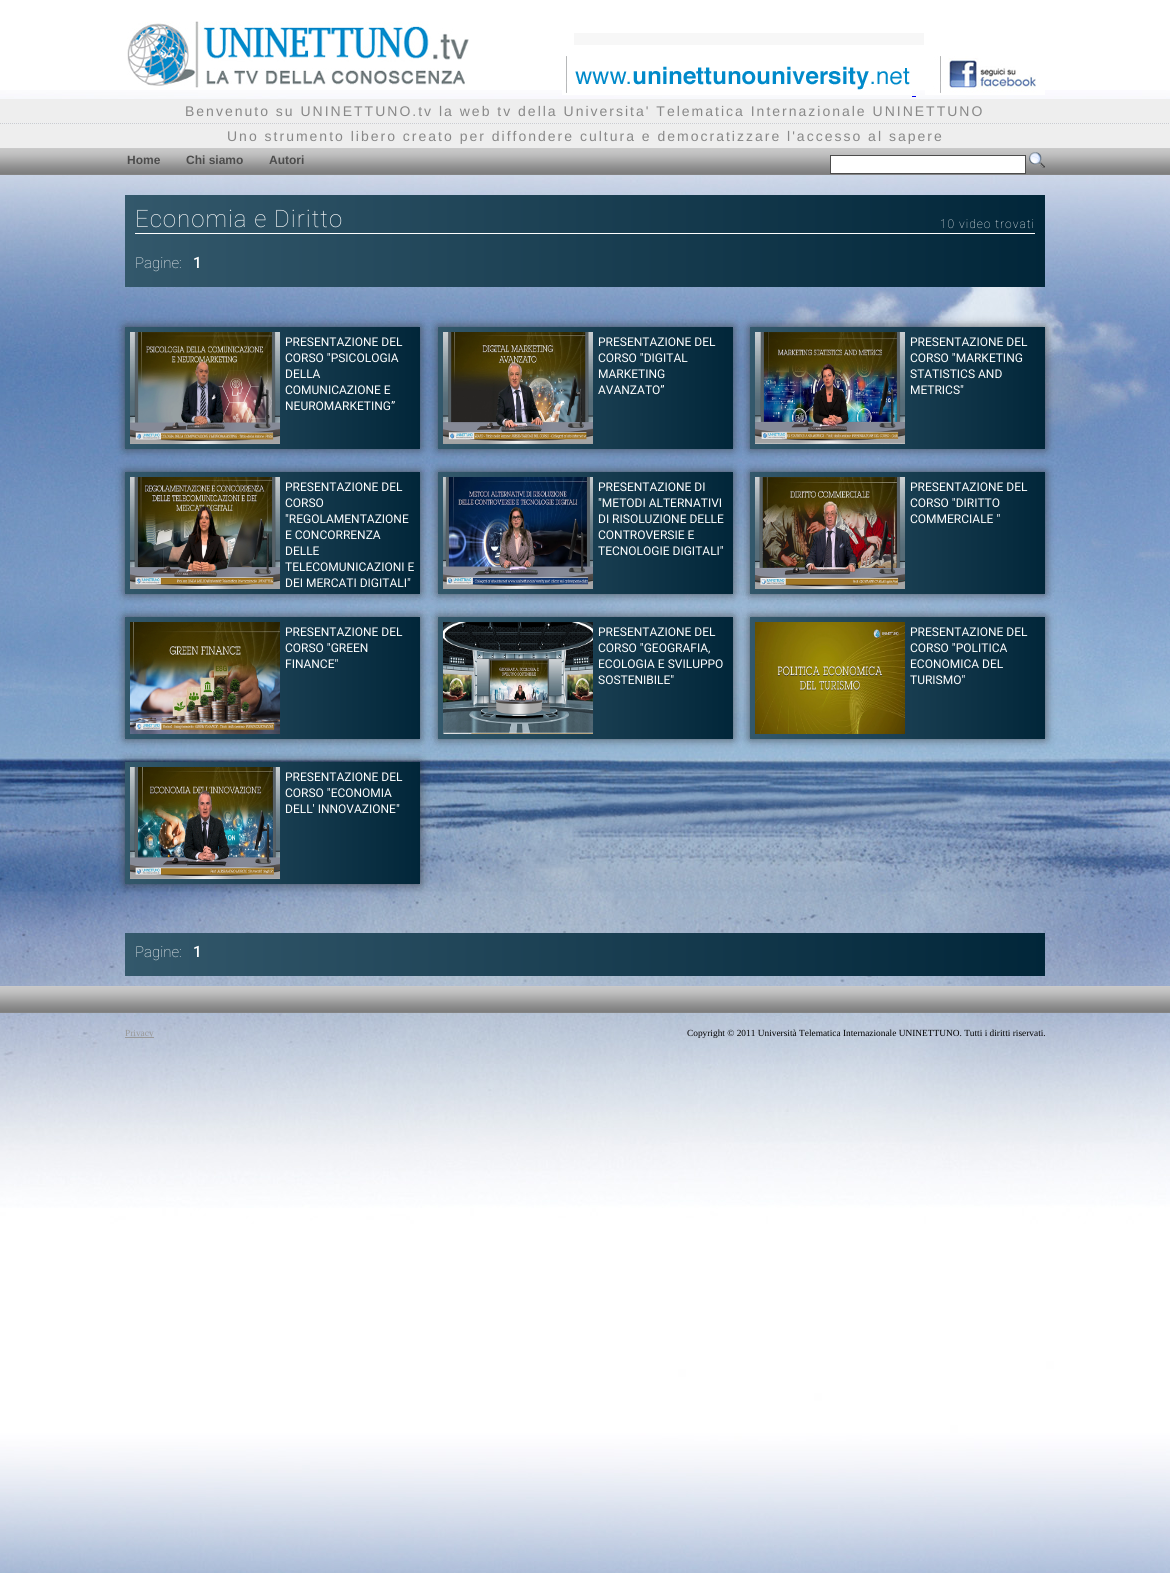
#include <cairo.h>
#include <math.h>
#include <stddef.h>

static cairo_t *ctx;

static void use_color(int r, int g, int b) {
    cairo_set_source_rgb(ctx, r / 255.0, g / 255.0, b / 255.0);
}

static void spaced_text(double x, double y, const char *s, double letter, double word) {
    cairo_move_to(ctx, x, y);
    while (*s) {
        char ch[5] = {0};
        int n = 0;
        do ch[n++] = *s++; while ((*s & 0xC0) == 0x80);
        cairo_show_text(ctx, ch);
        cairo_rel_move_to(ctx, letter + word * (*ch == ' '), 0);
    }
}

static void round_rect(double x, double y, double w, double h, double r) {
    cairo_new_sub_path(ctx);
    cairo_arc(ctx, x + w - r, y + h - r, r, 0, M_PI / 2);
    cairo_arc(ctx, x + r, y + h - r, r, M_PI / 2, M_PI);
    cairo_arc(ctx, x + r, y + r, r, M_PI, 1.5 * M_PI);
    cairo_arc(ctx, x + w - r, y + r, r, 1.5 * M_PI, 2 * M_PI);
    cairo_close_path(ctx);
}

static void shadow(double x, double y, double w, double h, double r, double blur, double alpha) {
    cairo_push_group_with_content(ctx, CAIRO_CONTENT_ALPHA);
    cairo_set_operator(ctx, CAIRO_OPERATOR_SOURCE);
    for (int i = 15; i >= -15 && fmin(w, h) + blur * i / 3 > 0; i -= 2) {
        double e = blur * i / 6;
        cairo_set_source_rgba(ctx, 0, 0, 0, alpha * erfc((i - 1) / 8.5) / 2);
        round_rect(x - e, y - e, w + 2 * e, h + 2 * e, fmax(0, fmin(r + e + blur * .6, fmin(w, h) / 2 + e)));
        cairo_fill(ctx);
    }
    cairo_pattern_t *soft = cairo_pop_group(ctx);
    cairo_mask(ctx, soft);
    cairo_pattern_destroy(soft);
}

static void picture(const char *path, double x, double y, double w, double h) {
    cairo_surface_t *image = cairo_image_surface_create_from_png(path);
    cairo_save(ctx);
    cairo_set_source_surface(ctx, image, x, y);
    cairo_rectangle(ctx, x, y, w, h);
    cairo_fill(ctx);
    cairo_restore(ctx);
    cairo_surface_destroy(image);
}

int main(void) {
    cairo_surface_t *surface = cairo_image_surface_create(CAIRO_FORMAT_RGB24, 1170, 1573);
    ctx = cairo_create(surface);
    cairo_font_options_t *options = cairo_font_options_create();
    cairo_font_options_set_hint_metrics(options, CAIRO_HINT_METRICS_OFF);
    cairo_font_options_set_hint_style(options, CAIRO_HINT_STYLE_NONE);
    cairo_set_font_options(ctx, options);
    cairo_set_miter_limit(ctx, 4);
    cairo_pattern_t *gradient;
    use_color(255, 255, 255);
    cairo_paint(ctx);
    picture("img1.png", 0, 90, 1170, 1483);
    picture("img2.png", 127, 21, 342, 67);
    use_color(247, 247, 247);
    cairo_rectangle(ctx, 574, 33, 350, 12);
    cairo_fill(ctx);
    picture("img3.png", 562, 56, 350, 39);
    picture("img4.png", 925, 56, 120, 39);
    use_color(0, 0, 238);
    cairo_rectangle(ctx, 912, 96, 4, 1);
    cairo_fill(ctx);
    use_color(238, 238, 238);
    cairo_rectangle(ctx, 0, 99, 1170, 24);
    cairo_fill(ctx);
    cairo_select_font_face(ctx, "Liberation Sans", CAIRO_FONT_SLANT_NORMAL, CAIRO_FONT_WEIGHT_NORMAL);
    cairo_set_font_size(ctx, 14);
    use_color(136, 136, 136);
    spaced_text(185, 116, "Benvenuto su UNINETTUNO.tv la web tv della Universita' Telematica Internazionale UNINETTUNO", 2, 0);
    cairo_new_path(ctx);
    cairo_move_to(ctx, 0, 123.5);
    cairo_line_to(ctx, 1170, 123.5);
    use_color(204, 204, 204);
    cairo_set_line_width(ctx, 1);
    cairo_set_dash(ctx, (double[]){1, 1}, 2, 0);
    cairo_stroke(ctx);
    use_color(238, 238, 238);
    cairo_rectangle(ctx, 0, 124, 1170, 24);
    cairo_fill(ctx);
    use_color(136, 136, 136);
    spaced_text(227, 141, "Uno strumento libero creato per diffondere cultura e democratizzare l'accesso al sapere", 2, 0);
    picture("img5.png", 0, 148, 1170, 27);
    cairo_select_font_face(ctx, "Liberation Sans", CAIRO_FONT_SLANT_NORMAL, CAIRO_FONT_WEIGHT_BOLD);
    cairo_set_font_size(ctx, 12);
    use_color(76, 76, 76);
    cairo_move_to(ctx, 127, 164);
    cairo_show_text(ctx, "Home");
    cairo_move_to(ctx, 186, 164);
    cairo_show_text(ctx, "Chi siamo");
    cairo_move_to(ctx, 269, 164);
    cairo_show_text(ctx, "Autori");
    use_color(255, 255, 255);
    cairo_rectangle(ctx, 830.5, 155.5, 195, 18);
    cairo_fill_preserve(ctx);
    use_color(76, 76, 76);
    cairo_set_dash(ctx, NULL, 0, 0);
    cairo_stroke(ctx);
    picture("img6.png", 1029, 152, 16, 16);
    gradient = cairo_pattern_create_linear(125, 220, 1045, 219);
    cairo_pattern_add_color_stop_rgba(gradient, 0, 0.2, 0.345, 0.42, 1);
    cairo_pattern_add_color_stop_rgba(gradient, 1, 0.004, 0.149, 0.224, 1);
    cairo_set_source(ctx, gradient);
    cairo_pattern_destroy(gradient);
    cairo_rectangle(ctx, 125, 195, 920, 49);
    cairo_fill(ctx);
    use_color(255, 255, 255);
    cairo_rectangle(ctx, 135, 233, 900, 1);
    cairo_fill(ctx);
    cairo_select_font_face(ctx, "Roboto Thin", CAIRO_FONT_SLANT_NORMAL, CAIRO_FONT_WEIGHT_NORMAL);
    cairo_set_font_size(ctx, 24);
    spaced_text(135, 227, "Economia e Diritto", 1, 0);
    cairo_set_font_size(ctx, 12);
    spaced_text(940, 228, "10 video trovati", 1, 0);
    gradient = cairo_pattern_create_linear(125, 266, 1045, 266);
    cairo_pattern_add_color_stop_rgba(gradient, 0, 0.2, 0.345, 0.42, 1);
    cairo_pattern_add_color_stop_rgba(gradient, 1, 0.004, 0.149, 0.224, 1);
    cairo_set_source(ctx, gradient);
    cairo_pattern_destroy(gradient);
    cairo_rectangle(ctx, 125, 244, 920, 43);
    cairo_fill(ctx);
    cairo_set_font_size(ctx, 15);
    use_color(255, 255, 255);
    cairo_move_to(ctx, 135, 268);
    cairo_show_text(ctx, "Pagine:");
    cairo_select_font_face(ctx, "Roboto", CAIRO_FONT_SLANT_NORMAL, CAIRO_FONT_WEIGHT_BOLD);
    cairo_move_to(ctx, 193, 268);
    cairo_show_text(ctx, "1");
    use_color(50, 50, 50);
    shadow(125, 327, 295, 122, 0, 5, 0.75);
    gradient = cairo_pattern_create_linear(125, 388, 420, 388);
    cairo_pattern_add_color_stop_rgba(gradient, 0, 0.2, 0.345, 0.42, 1);
    cairo_pattern_add_color_stop_rgba(gradient, 1, 0.004, 0.149, 0.224, 1);
    cairo_set_source(ctx, gradient);
    cairo_pattern_destroy(gradient);
    cairo_rectangle(ctx, 125, 327, 295, 122);
    cairo_fill(ctx);
    picture("img7.png", 130, 332, 150, 112);
    cairo_select_font_face(ctx, "Roboto", CAIRO_FONT_SLANT_NORMAL, CAIRO_FONT_WEIGHT_NORMAL);
    cairo_set_font_size(ctx, 12);
    use_color(255, 255, 255);
    cairo_move_to(ctx, 285, 346);
    cairo_show_text(ctx, "PRESENTAZIONE DEL");
    cairo_move_to(ctx, 285, 362);
    cairo_show_text(ctx, "CORSO \"PSICOLOGIA");
    cairo_move_to(ctx, 285, 378);
    cairo_show_text(ctx, "DELLA");
    cairo_move_to(ctx, 285, 394);
    cairo_show_text(ctx, "COMUNICAZIONE E");
    cairo_move_to(ctx, 285, 410);
    cairo_show_text(ctx, "NEUROMARKETING”");
    use_color(50, 50, 50);
    shadow(438, 327, 295, 122, 0, 5, 0.75);
    gradient = cairo_pattern_create_linear(438, 388, 733, 388);
    cairo_pattern_add_color_stop_rgba(gradient, 0, 0.2, 0.345, 0.42, 1);
    cairo_pattern_add_color_stop_rgba(gradient, 1, 0.004, 0.149, 0.224, 1);
    cairo_set_source(ctx, gradient);
    cairo_pattern_destroy(gradient);
    cairo_rectangle(ctx, 438, 327, 295, 122);
    cairo_fill(ctx);
    picture("img8.png", 443, 332, 150, 112);
    use_color(255, 255, 255);
    cairo_move_to(ctx, 598, 346);
    cairo_show_text(ctx, "PRESENTAZIONE DEL");
    cairo_move_to(ctx, 598, 362);
    cairo_show_text(ctx, "CORSO \"DIGITAL");
    cairo_move_to(ctx, 598, 378);
    cairo_show_text(ctx, "MARKETING");
    cairo_move_to(ctx, 598, 394);
    cairo_show_text(ctx, "AVANZATO”");
    use_color(50, 50, 50);
    shadow(750, 327, 295, 122, 0, 5, 0.75);
    gradient = cairo_pattern_create_linear(750, 388, 1045, 388);
    cairo_pattern_add_color_stop_rgba(gradient, 0, 0.2, 0.345, 0.42, 1);
    cairo_pattern_add_color_stop_rgba(gradient, 1, 0.004, 0.149, 0.224, 1);
    cairo_set_source(ctx, gradient);
    cairo_pattern_destroy(gradient);
    cairo_rectangle(ctx, 750, 327, 295, 122);
    cairo_fill(ctx);
    picture("img9.png", 755, 332, 150, 112);
    use_color(255, 255, 255);
    cairo_move_to(ctx, 910, 346);
    cairo_show_text(ctx, "PRESENTAZIONE DEL");
    cairo_move_to(ctx, 910, 362);
    cairo_show_text(ctx, "CORSO \"MARKETING");
    cairo_move_to(ctx, 910, 378);
    cairo_show_text(ctx, "STATISTICS AND");
    cairo_move_to(ctx, 910, 394);
    cairo_show_text(ctx, "METRICS\"");
    use_color(50, 50, 50);
    shadow(125, 472, 295, 122, 0, 5, 0.75);
    gradient = cairo_pattern_create_linear(125, 533, 420, 533);
    cairo_pattern_add_color_stop_rgba(gradient, 0, 0.2, 0.345, 0.42, 1);
    cairo_pattern_add_color_stop_rgba(gradient, 1, 0.004, 0.149, 0.224, 1);
    cairo_set_source(ctx, gradient);
    cairo_pattern_destroy(gradient);
    cairo_rectangle(ctx, 125, 472, 295, 122);
    cairo_fill(ctx);
    picture("img10.png", 130, 477, 150, 112);
    use_color(255, 255, 255);
    cairo_move_to(ctx, 285, 491);
    cairo_show_text(ctx, "PRESENTAZIONE DEL");
    cairo_move_to(ctx, 285, 507);
    cairo_show_text(ctx, "CORSO");
    cairo_move_to(ctx, 285, 523);
    cairo_show_text(ctx, "\"REGOLAMENTAZIONE");
    cairo_move_to(ctx, 285, 539);
    cairo_show_text(ctx, "E CONCORRENZA");
    cairo_move_to(ctx, 285, 555);
    cairo_show_text(ctx, "DELLE");
    cairo_move_to(ctx, 285, 571);
    cairo_show_text(ctx, "TELECOMUNICAZIONI E");
    cairo_move_to(ctx, 285, 587);
    cairo_show_text(ctx, "DEI MERCATI DIGITALI\"");
    use_color(50, 50, 50);
    shadow(438, 472, 295, 122, 0, 5, 0.75);
    gradient = cairo_pattern_create_linear(438, 533, 733, 533);
    cairo_pattern_add_color_stop_rgba(gradient, 0, 0.2, 0.345, 0.42, 1);
    cairo_pattern_add_color_stop_rgba(gradient, 1, 0.004, 0.149, 0.224, 1);
    cairo_set_source(ctx, gradient);
    cairo_pattern_destroy(gradient);
    cairo_rectangle(ctx, 438, 472, 295, 122);
    cairo_fill(ctx);
    picture("img11.png", 443, 477, 150, 112);
    use_color(255, 255, 255);
    cairo_move_to(ctx, 598, 491);
    cairo_show_text(ctx, "PRESENTAZIONE DI");
    cairo_move_to(ctx, 598, 507);
    cairo_show_text(ctx, "\"METODI ALTERNATIVI");
    cairo_move_to(ctx, 598, 523);
    cairo_show_text(ctx, "DI RISOLUZIONE DELLE");
    cairo_move_to(ctx, 598, 539);
    cairo_show_text(ctx, "CONTROVERSIE E");
    cairo_move_to(ctx, 598, 555);
    cairo_show_text(ctx, "TECNOLOGIE DIGITALI\"");
    use_color(50, 50, 50);
    shadow(750, 472, 295, 122, 0, 5, 0.75);
    gradient = cairo_pattern_create_linear(750, 533, 1045, 533);
    cairo_pattern_add_color_stop_rgba(gradient, 0, 0.2, 0.345, 0.42, 1);
    cairo_pattern_add_color_stop_rgba(gradient, 1, 0.004, 0.149, 0.224, 1);
    cairo_set_source(ctx, gradient);
    cairo_pattern_destroy(gradient);
    cairo_rectangle(ctx, 750, 472, 295, 122);
    cairo_fill(ctx);
    picture("img12.png", 755, 477, 150, 112);
    use_color(255, 255, 255);
    cairo_move_to(ctx, 910, 491);
    cairo_show_text(ctx, "PRESENTAZIONE DEL");
    cairo_move_to(ctx, 910, 507);
    cairo_show_text(ctx, "CORSO \"DIRITTO");
    cairo_move_to(ctx, 910, 523);
    cairo_show_text(ctx, "COMMERCIALE \"");
    use_color(50, 50, 50);
    shadow(125, 617, 295, 122, 0, 5, 0.75);
    gradient = cairo_pattern_create_linear(125, 678, 420, 678);
    cairo_pattern_add_color_stop_rgba(gradient, 0, 0.2, 0.345, 0.42, 1);
    cairo_pattern_add_color_stop_rgba(gradient, 1, 0.004, 0.149, 0.224, 1);
    cairo_set_source(ctx, gradient);
    cairo_pattern_destroy(gradient);
    cairo_rectangle(ctx, 125, 617, 295, 122);
    cairo_fill(ctx);
    picture("img13.png", 130, 622, 150, 112);
    use_color(255, 255, 255);
    cairo_move_to(ctx, 285, 636);
    cairo_show_text(ctx, "PRESENTAZIONE DEL");
    cairo_move_to(ctx, 285, 652);
    cairo_show_text(ctx, "CORSO \"GREEN");
    cairo_move_to(ctx, 285, 668);
    cairo_show_text(ctx, "FINANCE\"");
    use_color(50, 50, 50);
    shadow(438, 617, 295, 122, 0, 5, 0.75);
    gradient = cairo_pattern_create_linear(438, 678, 733, 678);
    cairo_pattern_add_color_stop_rgba(gradient, 0, 0.2, 0.345, 0.42, 1);
    cairo_pattern_add_color_stop_rgba(gradient, 1, 0.004, 0.149, 0.224, 1);
    cairo_set_source(ctx, gradient);
    cairo_pattern_destroy(gradient);
    cairo_rectangle(ctx, 438, 617, 295, 122);
    cairo_fill(ctx);
    picture("img14.png", 443, 622, 150, 112);
    use_color(255, 255, 255);
    cairo_move_to(ctx, 598, 636);
    cairo_show_text(ctx, "PRESENTAZIONE DEL");
    cairo_move_to(ctx, 598, 652);
    cairo_show_text(ctx, "CORSO \"GEOGRAFIA,");
    cairo_move_to(ctx, 598, 668);
    cairo_show_text(ctx, "ECOLOGIA E SVILUPPO");
    cairo_move_to(ctx, 598, 684);
    cairo_show_text(ctx, "SOSTENIBILE\"");
    use_color(50, 50, 50);
    shadow(750, 617, 295, 122, 0, 5, 0.75);
    gradient = cairo_pattern_create_linear(750, 678, 1045, 678);
    cairo_pattern_add_color_stop_rgba(gradient, 0, 0.2, 0.345, 0.42, 1);
    cairo_pattern_add_color_stop_rgba(gradient, 1, 0.004, 0.149, 0.224, 1);
    cairo_set_source(ctx, gradient);
    cairo_pattern_destroy(gradient);
    cairo_rectangle(ctx, 750, 617, 295, 122);
    cairo_fill(ctx);
    picture("img15.png", 755, 622, 150, 112);
    use_color(255, 255, 255);
    cairo_move_to(ctx, 910, 636);
    cairo_show_text(ctx, "PRESENTAZIONE DEL");
    cairo_move_to(ctx, 910, 652);
    cairo_show_text(ctx, "CORSO \"POLITICA");
    cairo_move_to(ctx, 910, 668);
    cairo_show_text(ctx, "ECONOMICA DEL");
    cairo_move_to(ctx, 910, 684);
    cairo_show_text(ctx, "TURISMO\"");
    use_color(50, 50, 50);
    shadow(125, 762, 295, 122, 0, 5, 0.75);
    gradient = cairo_pattern_create_linear(125, 823, 420, 823);
    cairo_pattern_add_color_stop_rgba(gradient, 0, 0.2, 0.345, 0.42, 1);
    cairo_pattern_add_color_stop_rgba(gradient, 1, 0.004, 0.149, 0.224, 1);
    cairo_set_source(ctx, gradient);
    cairo_pattern_destroy(gradient);
    cairo_rectangle(ctx, 125, 762, 295, 122);
    cairo_fill(ctx);
    picture("img16.png", 130, 767, 150, 112);
    use_color(255, 255, 255);
    cairo_move_to(ctx, 285, 781);
    cairo_show_text(ctx, "PRESENTAZIONE DEL");
    cairo_move_to(ctx, 285, 797);
    cairo_show_text(ctx, "CORSO \"ECONOMIA");
    cairo_move_to(ctx, 285, 813);
    cairo_show_text(ctx, "DELL' INNOVAZIONE\"");
    gradient = cairo_pattern_create_linear(125, 955, 1045, 955);
    cairo_pattern_add_color_stop_rgba(gradient, 0, 0.2, 0.345, 0.42, 1);
    cairo_pattern_add_color_stop_rgba(gradient, 1, 0.004, 0.149, 0.224, 1);
    cairo_set_source(ctx, gradient);
    cairo_pattern_destroy(gradient);
    cairo_rectangle(ctx, 125, 933, 920, 43);
    cairo_fill(ctx);
    cairo_select_font_face(ctx, "Roboto Thin", CAIRO_FONT_SLANT_NORMAL, CAIRO_FONT_WEIGHT_NORMAL);
    cairo_set_font_size(ctx, 15);
    use_color(255, 255, 255);
    cairo_move_to(ctx, 135, 957);
    cairo_show_text(ctx, "Pagine:");
    cairo_select_font_face(ctx, "Roboto", CAIRO_FONT_SLANT_NORMAL, CAIRO_FONT_WEIGHT_BOLD);
    cairo_move_to(ctx, 193, 957);
    cairo_show_text(ctx, "1");
    picture("img5.png", 0, 986, 1170, 27);
    use_color(153, 153, 153);
    cairo_rectangle(ctx, 125, 1037, 29, 1);
    cairo_fill(ctx);
    cairo_select_font_face(ctx, "Liberation Serif", CAIRO_FONT_SLANT_NORMAL, CAIRO_FONT_WEIGHT_NORMAL);
    cairo_set_font_size(ctx, 9.35);
    cairo_move_to(ctx, 125, 1036);
    cairo_show_text(ctx, "Privacy");
    use_color(0, 0, 0);
    cairo_move_to(ctx, 687, 1036);
    cairo_show_text(ctx, "Copyright © 2011 Università Telematica Internazionale UNINETTUNO. Tutti i diritti riservati.");
    cairo_surface_write_to_png(surface, "result.png");
    cairo_font_options_destroy(options);
    cairo_destroy(ctx);
    cairo_surface_destroy(surface);
    return 0;
}
